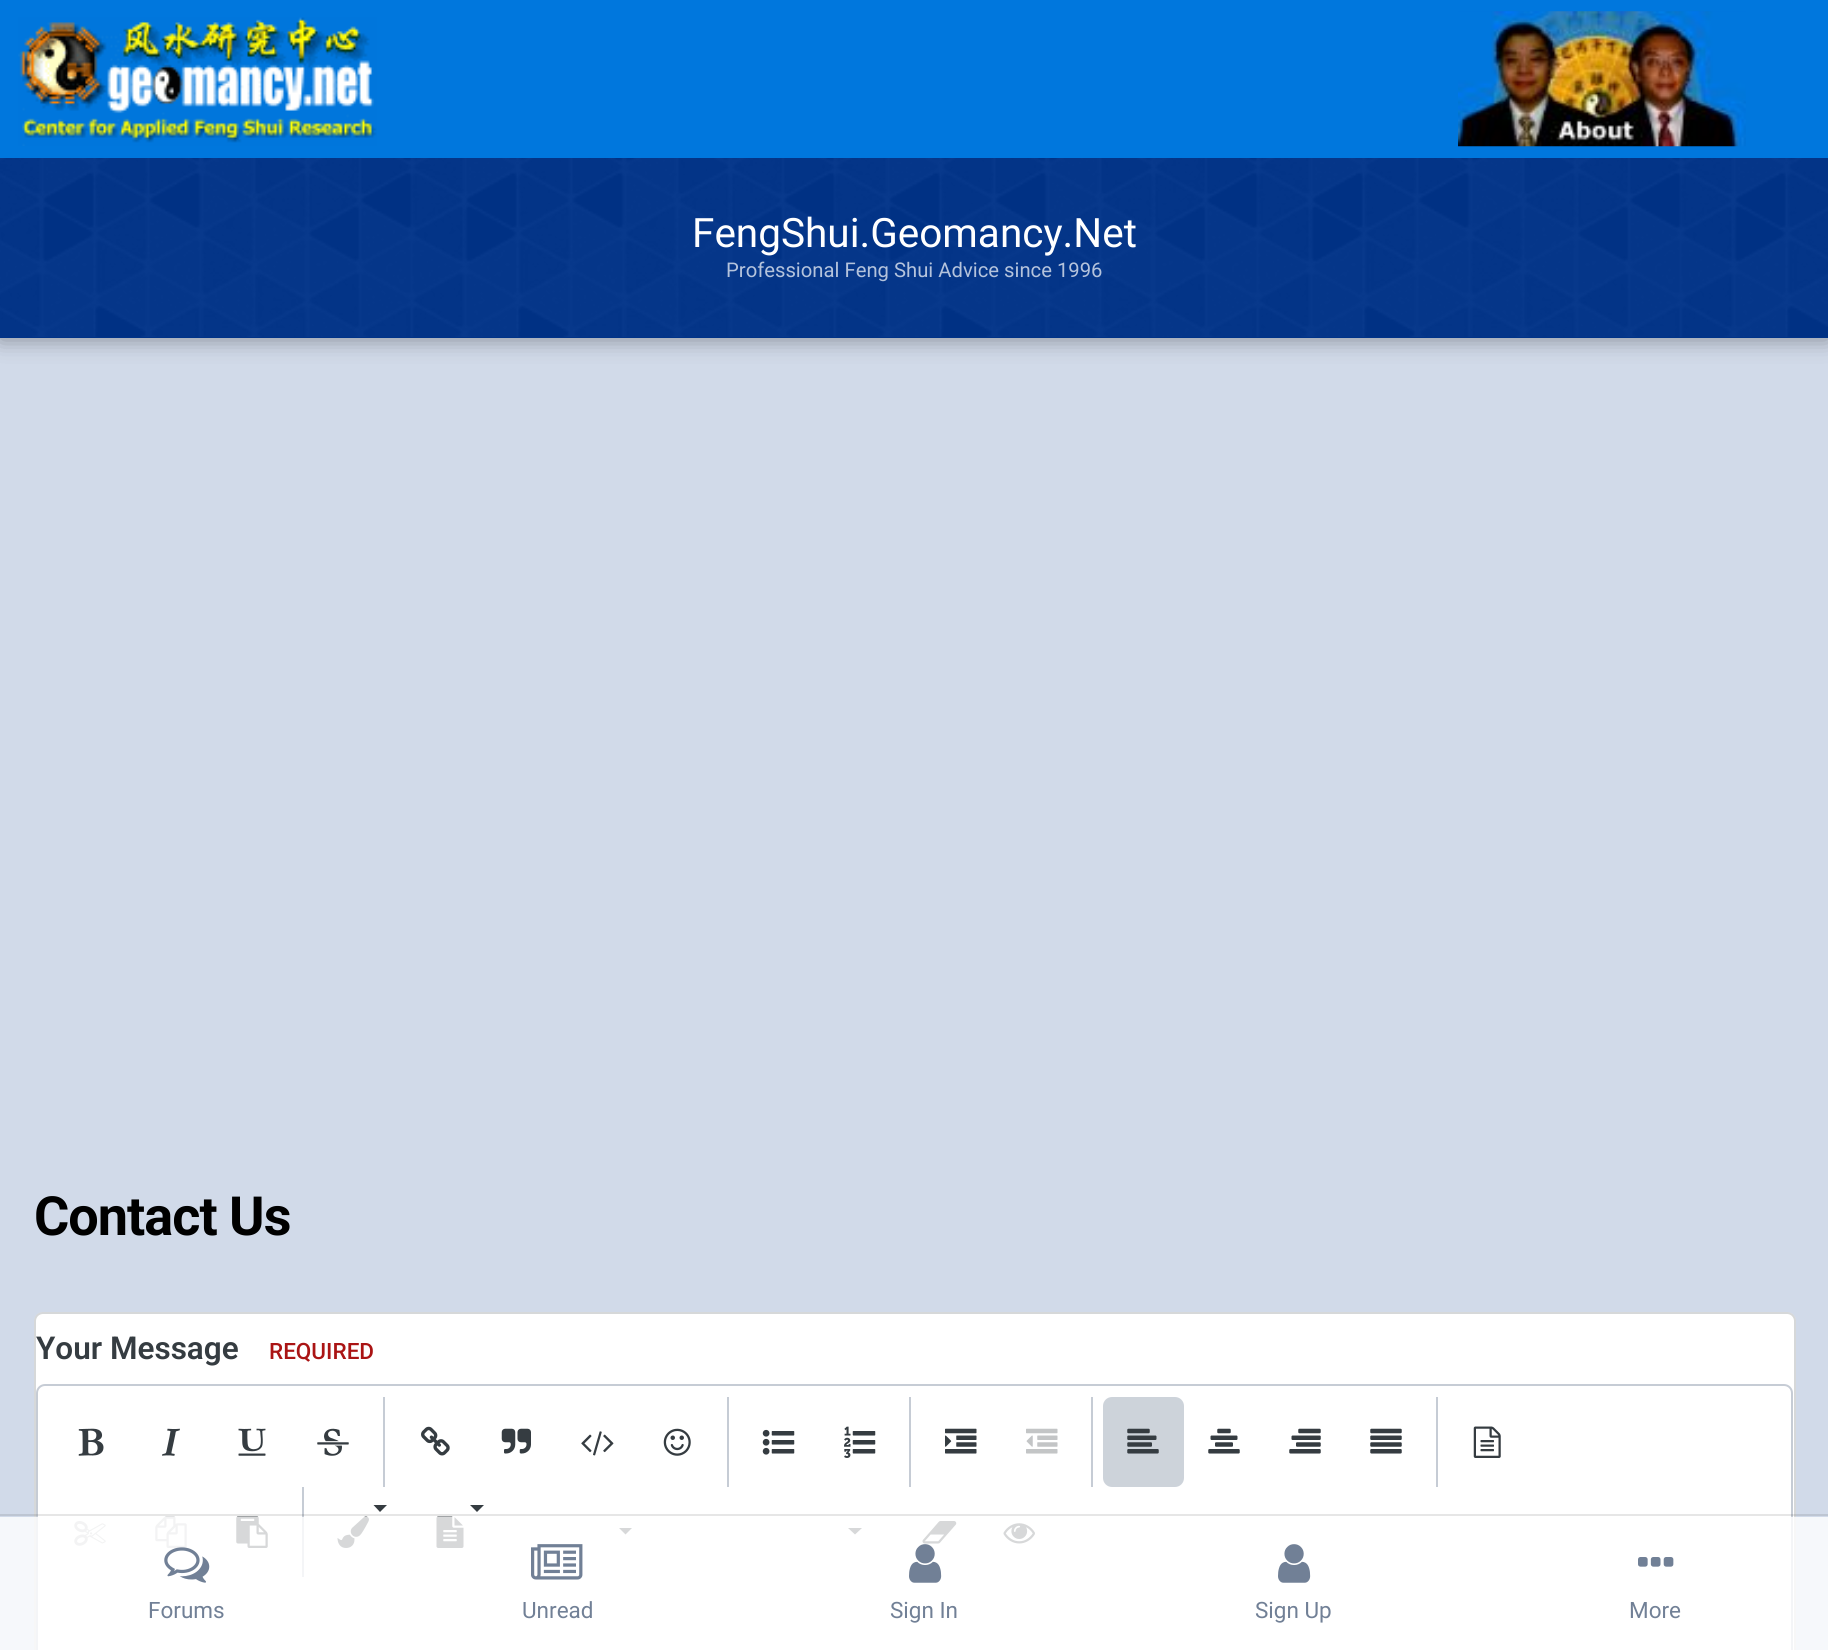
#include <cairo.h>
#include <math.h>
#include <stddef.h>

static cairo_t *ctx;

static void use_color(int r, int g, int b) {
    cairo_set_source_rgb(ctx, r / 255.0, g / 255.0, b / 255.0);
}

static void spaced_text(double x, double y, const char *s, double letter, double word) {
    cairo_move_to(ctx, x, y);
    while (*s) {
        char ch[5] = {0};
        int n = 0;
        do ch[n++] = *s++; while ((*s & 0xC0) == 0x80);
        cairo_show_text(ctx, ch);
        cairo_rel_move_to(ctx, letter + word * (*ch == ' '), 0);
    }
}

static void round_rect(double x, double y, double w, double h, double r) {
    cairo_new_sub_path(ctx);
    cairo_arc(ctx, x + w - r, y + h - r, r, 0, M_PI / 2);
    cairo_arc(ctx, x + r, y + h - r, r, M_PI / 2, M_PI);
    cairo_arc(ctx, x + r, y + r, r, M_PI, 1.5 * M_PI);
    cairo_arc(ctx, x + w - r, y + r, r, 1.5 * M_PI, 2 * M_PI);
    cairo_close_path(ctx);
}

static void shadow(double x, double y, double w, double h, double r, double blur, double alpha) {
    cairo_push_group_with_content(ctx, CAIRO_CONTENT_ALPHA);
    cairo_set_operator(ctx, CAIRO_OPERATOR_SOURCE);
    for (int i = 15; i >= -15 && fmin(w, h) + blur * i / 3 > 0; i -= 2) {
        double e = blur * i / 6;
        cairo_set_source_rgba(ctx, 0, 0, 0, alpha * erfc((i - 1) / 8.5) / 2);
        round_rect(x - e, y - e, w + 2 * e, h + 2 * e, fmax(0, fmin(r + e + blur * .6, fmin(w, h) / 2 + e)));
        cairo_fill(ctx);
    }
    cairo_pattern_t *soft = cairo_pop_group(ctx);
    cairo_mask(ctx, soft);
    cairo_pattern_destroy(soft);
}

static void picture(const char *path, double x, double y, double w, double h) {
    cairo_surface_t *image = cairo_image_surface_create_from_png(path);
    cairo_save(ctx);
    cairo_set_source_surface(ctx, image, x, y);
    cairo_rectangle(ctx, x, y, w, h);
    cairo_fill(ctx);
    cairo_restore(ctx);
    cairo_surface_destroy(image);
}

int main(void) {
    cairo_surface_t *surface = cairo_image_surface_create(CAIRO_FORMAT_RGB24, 1828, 1650);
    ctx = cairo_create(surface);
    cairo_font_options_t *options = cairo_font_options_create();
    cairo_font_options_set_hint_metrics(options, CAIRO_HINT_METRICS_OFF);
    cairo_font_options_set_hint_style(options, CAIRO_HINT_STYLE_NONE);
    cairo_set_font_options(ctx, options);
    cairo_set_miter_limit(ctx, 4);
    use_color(209, 218, 233);
    cairo_paint(ctx);
    use_color(0, 0, 0);
    shadow(0, 2, 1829, 338, 0, 11, 0.35);
    use_color(0, 51, 136);
    cairo_rectangle(ctx, 0, 158, 1828, 180);
    cairo_fill(ctx);
    picture("img1.png", 0, 158, 1828, 179);
    use_color(0, 119, 221);
    cairo_rectangle(ctx, 0, 0, 1828, 158);
    cairo_fill(ctx);
    picture("img2.png", 18, 17, 359, 129);
    picture("img3.png", 1458, 11, 288, 136);
    cairo_select_font_face(ctx, "Roboto", CAIRO_FONT_SLANT_NORMAL, CAIRO_FONT_WEIGHT_NORMAL);
    cairo_set_font_size(ctx, 40.5);
    use_color(255, 255, 255);
    cairo_move_to(ctx, 692, 247);
    cairo_show_text(ctx, "FengShui.Geomancy.Net");
    cairo_set_font_size(ctx, 20.25);
    use_color(180, 195, 220);
    cairo_move_to(ctx, 726, 277);
    cairo_show_text(ctx, "Professional Feng Shui Advice since 1996");
    cairo_select_font_face(ctx, "Roboto", CAIRO_FONT_SLANT_NORMAL, CAIRO_FONT_WEIGHT_BOLD);
    cairo_set_font_size(ctx, 54);
    use_color(0, 0, 0);
    spaced_text(34, 1235, "Contact Us", -1, 0);
    use_color(255, 255, 255);
    round_rect(34, 1312, 1762, 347, 9);
    cairo_fill(ctx);
    round_rect(35, 1313, 1760, 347, 8);
    cairo_set_source_rgba(ctx, 0.208, 0.235, 0.255, 0.2);
    cairo_stroke(ctx);
    cairo_select_font_face(ctx, "Roboto SemiBold", CAIRO_FONT_SLANT_NORMAL, CAIRO_FONT_WEIGHT_NORMAL);
    cairo_set_font_size(ctx, 31.5);
    use_color(53, 60, 65);
    cairo_move_to(ctx, 36, 1359);
    cairo_show_text(ctx, "Your Message");
    cairo_select_font_face(ctx, "Roboto Medium", CAIRO_FONT_SLANT_NORMAL, CAIRO_FONT_WEIGHT_NORMAL);
    cairo_set_font_size(ctx, 22.5);
    use_color(170, 20, 20);
    cairo_move_to(ctx, 269, 1359);
    cairo_show_text(ctx, "REQUIRED");
    round_rect(37, 1385, 1755, 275, 8);
    use_color(198, 204, 213);
    cairo_stroke(ctx);
    picture("img4.png", 78, 1428, 26, 28);
    picture("img5.png", 162, 1428, 18, 28);
    picture("img6.png", 238, 1428, 28, 28);
    picture("img7.png", 317, 1428, 32, 28);
    cairo_rectangle(ctx, 383, 1397, 2, 90);
    cairo_fill(ctx);
    picture("img8.png", 421, 1426, 29, 30);
    picture("img9.png", 501, 1428, 30, 26);
    picture("img10.png", 581, 1431, 33, 25);
    picture("img11.png", 663, 1428, 28, 28);
    cairo_rectangle(ctx, 727, 1397, 2, 90);
    cairo_fill(ctx);
    picture("img12.png", 762, 1429, 33, 26);
    picture("img13.png", 844, 1426, 32, 32);
    cairo_rectangle(ctx, 909, 1397, 2, 90);
    cairo_fill(ctx);
    picture("img14.png", 945, 1428, 32, 26);
    picture("img15.png", 1026, 1428, 32, 26);
    cairo_rectangle(ctx, 1091, 1397, 2, 90);
    cairo_fill(ctx);
    use_color(205, 211, 218);
    round_rect(1103, 1397, 81, 90, 9);
    cairo_fill(ctx);
    picture("img16.png", 1127, 1428, 32, 26);
    picture("img17.png", 1208, 1428, 32, 26);
    picture("img18.png", 1289, 1428, 32, 26);
    picture("img19.png", 1370, 1428, 32, 26);
    use_color(198, 204, 213);
    cairo_rectangle(ctx, 1436, 1397, 2, 90);
    cairo_fill(ctx);
    picture("img20.png", 1473, 1426, 28, 32);
    picture("img21.png", 74, 1521, 32, 25);
    picture("img22.png", 155, 1516, 32, 32);
    picture("img23.png", 236, 1516, 32, 32);
    cairo_rectangle(ctx, 302, 1487, 2, 90);
    cairo_fill(ctx);
    use_color(53, 60, 65);
    cairo_new_path(ctx);
    cairo_move_to(ctx, 373.5, 1505);
    cairo_line_to(ctx, 387, 1505);
    cairo_line_to(ctx, 380, 1512);
    cairo_close_path(ctx);
    cairo_fill(ctx);
    picture("img24.png", 337, 1516, 32, 32);
    cairo_new_path(ctx);
    cairo_move_to(ctx, 470, 1505);
    cairo_line_to(ctx, 484, 1505);
    cairo_line_to(ctx, 477, 1512);
    cairo_close_path(ctx);
    cairo_fill(ctx);
    picture("img25.png", 436, 1516, 28, 32);
    cairo_new_path(ctx);
    cairo_move_to(ctx, 619, 1528);
    cairo_line_to(ctx, 632, 1528);
    cairo_line_to(ctx, 625.5, 1534.5);
    cairo_close_path(ctx);
    cairo_fill(ctx);
    cairo_new_path(ctx);
    cairo_move_to(ctx, 848, 1528);
    cairo_line_to(ctx, 862, 1528);
    cairo_line_to(ctx, 855, 1534.5);
    cairo_close_path(ctx);
    cairo_fill(ctx);
    picture("img26.png", 922, 1521, 35, 23);
    picture("img27.png", 1003, 1523, 32, 21);
    cairo_set_source_rgba(ctx, 0, 0, 0, 0.1);
    cairo_rectangle(ctx, 0, 1514, 1828, 2);
    cairo_fill(ctx);
    cairo_set_source_rgba(ctx, 1, 1, 1, 0.8);
    cairo_rectangle(ctx, 0, 1517, 1828, 133);
    cairo_fill(ctx);
    picture("img28.png", 164, 1547, 46, 36);
    cairo_select_font_face(ctx, "Roboto", CAIRO_FONT_SLANT_NORMAL, CAIRO_FONT_WEIGHT_NORMAL);
    use_color(113, 128, 150);
    cairo_move_to(ctx, 148, 1618);
    cairo_show_text(ctx, "Forums");
    picture("img29.png", 531, 1544, 52, 36);
    cairo_move_to(ctx, 522, 1618);
    cairo_show_text(ctx, "Unread");
    picture("img30.png", 909, 1544, 33, 39);
    cairo_move_to(ctx, 890, 1618);
    cairo_show_text(ctx, "Sign In");
    picture("img30.png", 1278, 1544, 33, 39);
    cairo_move_to(ctx, 1255, 1618);
    cairo_show_text(ctx, "Sign Up");
    picture("img31.png", 1638, 1557, 36, 10);
    cairo_move_to(ctx, 1629, 1618);
    cairo_show_text(ctx, "More");
    cairo_surface_write_to_png(surface, "result.png");
    cairo_font_options_destroy(options);
    cairo_destroy(ctx);
    cairo_surface_destroy(surface);
    return 0;
}
